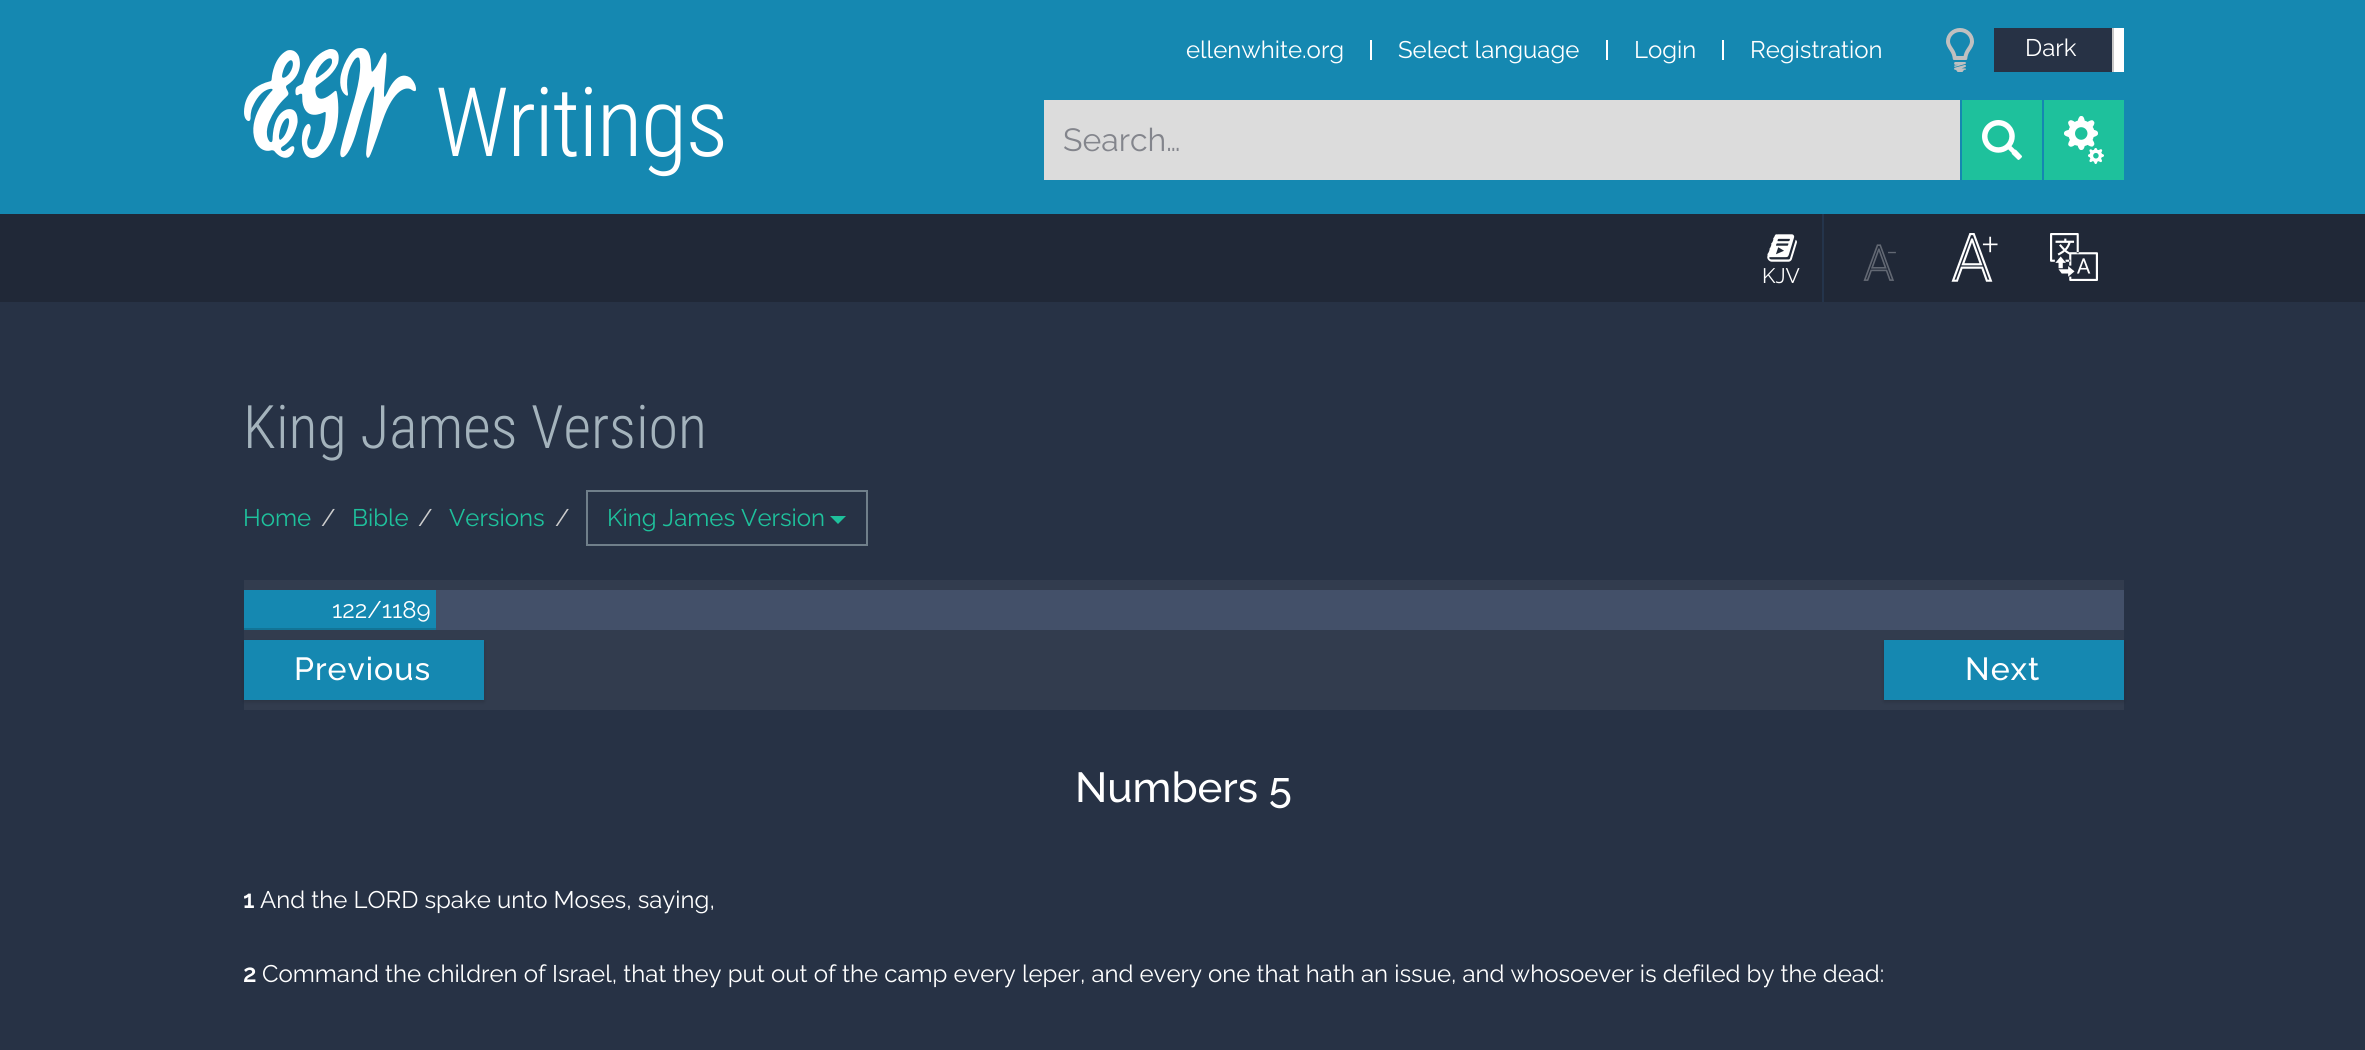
#include <cairo.h>
#include <math.h>
#include <stddef.h>

static cairo_t *ctx;

static void use_color(int r, int g, int b) {
    cairo_set_source_rgb(ctx, r / 255.0, g / 255.0, b / 255.0);
}

static void spaced_text(double x, double y, const char *s, double letter, double word) {
    cairo_move_to(ctx, x, y);
    while (*s) {
        char ch[5] = {0};
        int n = 0;
        do ch[n++] = *s++; while ((*s & 0xC0) == 0x80);
        cairo_show_text(ctx, ch);
        cairo_rel_move_to(ctx, letter + word * (*ch == ' '), 0);
    }
}

static void round_rect(double x, double y, double w, double h, double r) {
    cairo_new_sub_path(ctx);
    cairo_arc(ctx, x + w - r, y + h - r, r, 0, M_PI / 2);
    cairo_arc(ctx, x + r, y + h - r, r, M_PI / 2, M_PI);
    cairo_arc(ctx, x + r, y + r, r, M_PI, 1.5 * M_PI);
    cairo_arc(ctx, x + w - r, y + r, r, 1.5 * M_PI, 2 * M_PI);
    cairo_close_path(ctx);
}

static void shadow(double x, double y, double w, double h, double r, double blur, double alpha) {
    cairo_push_group_with_content(ctx, CAIRO_CONTENT_ALPHA);
    cairo_set_operator(ctx, CAIRO_OPERATOR_SOURCE);
    for (int i = 15; i >= -15 && fmin(w, h) + blur * i / 3 > 0; i -= 2) {
        double e = blur * i / 6;
        cairo_set_source_rgba(ctx, 0, 0, 0, alpha * erfc((i - 1) / 8.5) / 2);
        round_rect(x - e, y - e, w + 2 * e, h + 2 * e, fmax(0, fmin(r + e + blur * .6, fmin(w, h) / 2 + e)));
        cairo_fill(ctx);
    }
    cairo_pattern_t *soft = cairo_pop_group(ctx);
    cairo_mask(ctx, soft);
    cairo_pattern_destroy(soft);
}

static void picture(const char *path, double x, double y, double w, double h) {
    cairo_surface_t *image = cairo_image_surface_create_from_png(path);
    cairo_save(ctx);
    cairo_set_source_surface(ctx, image, x, y);
    cairo_rectangle(ctx, x, y, w, h);
    cairo_fill(ctx);
    cairo_restore(ctx);
    cairo_surface_destroy(image);
}

int main(void) {
    cairo_surface_t *surface = cairo_image_surface_create(CAIRO_FORMAT_RGB24, 2365, 1050);
    ctx = cairo_create(surface);
    cairo_font_options_t *options = cairo_font_options_create();
    cairo_font_options_set_hint_metrics(options, CAIRO_HINT_METRICS_OFF);
    cairo_font_options_set_hint_style(options, CAIRO_HINT_STYLE_NONE);
    cairo_set_font_options(ctx, options);
    cairo_set_miter_limit(ctx, 4);
    use_color(39, 50, 69);
    cairo_paint(ctx);
    use_color(21, 136, 177);
    cairo_rectangle(ctx, 0, 0, 2365, 214);
    cairo_fill(ctx);
    picture("img1.png", 244, 48, 172, 110);
    cairo_select_font_face(ctx, "Roboto Condensed Light", CAIRO_FONT_SLANT_NORMAL, CAIRO_FONT_WEIGHT_NORMAL);
    cairo_set_font_size(ctx, 96);
    use_color(255, 255, 255);
    spaced_text(435, 156, "Writings", -2, 0);
    cairo_select_font_face(ctx, "Raleway", CAIRO_FONT_SLANT_NORMAL, CAIRO_FONT_WEIGHT_NORMAL);
    cairo_set_font_size(ctx, 24);
    cairo_move_to(ctx, 1186, 58);
    cairo_show_text(ctx, "ellenwhite.org");
    cairo_rectangle(ctx, 1370, 40, 2, 20);
    cairo_fill(ctx);
    cairo_move_to(ctx, 1398, 58);
    cairo_show_text(ctx, "Select language");
    cairo_rectangle(ctx, 1606, 40, 2, 20);
    cairo_fill(ctx);
    cairo_move_to(ctx, 1634, 58);
    cairo_show_text(ctx, "Login");
    cairo_rectangle(ctx, 1722, 40, 2, 20);
    cairo_fill(ctx);
    cairo_move_to(ctx, 1750, 58);
    cairo_show_text(ctx, "Registration");
    picture("img2.png", 1946, 28, 28, 44);
    use_color(39, 50, 69);
    cairo_rectangle(ctx, 1994, 28, 118, 44);
    cairo_fill(ctx);
    use_color(255, 255, 255);
    cairo_move_to(ctx, 2025, 56);
    cairo_show_text(ctx, "Dark");
    cairo_rectangle(ctx, 2114, 28, 10, 44);
    cairo_fill(ctx);
    use_color(200, 200, 200);
    cairo_rectangle(ctx, 2112, 28, 2, 44);
    cairo_fill(ctx);
    use_color(220, 220, 220);
    cairo_rectangle(ctx, 1044, 100, 916, 80);
    cairo_fill(ctx);
    cairo_set_font_size(ctx, 32);
    use_color(131, 133, 140);
    cairo_move_to(ctx, 1063, 151);
    cairo_show_text(ctx, "Search…");
    use_color(30, 193, 156);
    cairo_rectangle(ctx, 1962, 100, 80, 80);
    cairo_fill(ctx);
    picture("img3.png", 1982, 120, 40, 40);
    cairo_rectangle(ctx, 2044, 100, 80, 80);
    cairo_fill(ctx);
    picture("img4.png", 2064, 116, 40, 48);
    use_color(32, 40, 55);
    cairo_rectangle(ctx, 0, 214, 2365, 88);
    cairo_fill(ctx);
    picture("img5.png", 1767, 234, 30, 28);
    cairo_set_font_size(ctx, 21);
    use_color(255, 255, 255);
    cairo_move_to(ctx, 1762, 283);
    cairo_show_text(ctx, "KJV");
    use_color(36, 52, 75);
    cairo_rectangle(ctx, 1822, 214, 2, 88);
    cairo_fill(ctx);
    picture("img6.png", 1863, 244, 33, 37);
    picture("img7.png", 1951, 233, 47, 49);
    picture("img8.png", 2050, 233, 48, 48);
    cairo_select_font_face(ctx, "Roboto Condensed Light", CAIRO_FONT_SLANT_NORMAL, CAIRO_FONT_WEIGHT_NORMAL);
    cairo_set_font_size(ctx, 60);
    use_color(164, 179, 188);
    cairo_move_to(ctx, 243, 448);
    cairo_show_text(ctx, "King James Version");
    cairo_select_font_face(ctx, "Raleway", CAIRO_FONT_SLANT_NORMAL, CAIRO_FONT_WEIGHT_NORMAL);
    cairo_set_font_size(ctx, 24);
    use_color(30, 193, 156);
    cairo_move_to(ctx, 243, 526);
    cairo_show_text(ctx, "Home");
    use_color(204, 204, 204);
    cairo_move_to(ctx, 321, 526);
    cairo_show_text(ctx, "/");
    use_color(30, 193, 156);
    cairo_move_to(ctx, 352, 526);
    cairo_show_text(ctx, "Bible");
    use_color(204, 204, 204);
    cairo_move_to(ctx, 418, 526);
    cairo_show_text(ctx, "/");
    use_color(30, 193, 156);
    cairo_move_to(ctx, 449, 526);
    cairo_show_text(ctx, "Versions");
    use_color(204, 204, 204);
    cairo_move_to(ctx, 555, 526);
    cairo_show_text(ctx, "/");
    cairo_rectangle(ctx, 587, 491, 280, 54);
    use_color(112, 127, 138);
    cairo_stroke(ctx);
    use_color(30, 193, 156);
    cairo_move_to(ctx, 607, 526);
    cairo_show_text(ctx, "King James Version");
    cairo_new_path(ctx);
    cairo_move_to(ctx, 830, 516);
    cairo_line_to(ctx, 846, 516);
    cairo_line_to(ctx, 838, 524);
    cairo_close_path(ctx);
    cairo_fill(ctx);
    use_color(50, 60, 78);
    cairo_rectangle(ctx, 244, 580, 1880, 130);
    cairo_fill(ctx);
    use_color(67, 80, 105);
    cairo_rectangle(ctx, 436, 590, 1688, 40);
    cairo_fill(ctx);
    use_color(21, 136, 177);
    cairo_rectangle(ctx, 244, 590, 192, 38);
    cairo_fill(ctx);
    use_color(18, 116, 150);
    cairo_rectangle(ctx, 244, 628, 192, 2);
    cairo_fill(ctx);
    use_color(255, 255, 255);
    cairo_move_to(ctx, 332, 618);
    cairo_show_text(ctx, "122/1189");
    use_color(0, 0, 0);
    shadow(244, 642, 240, 60, 0, 2, 0.15);
    use_color(21, 136, 177);
    cairo_rectangle(ctx, 244, 640, 240, 60);
    cairo_fill(ctx);
    cairo_select_font_face(ctx, "Raleway Medium", CAIRO_FONT_SLANT_NORMAL, CAIRO_FONT_WEIGHT_NORMAL);
    cairo_set_font_size(ctx, 32);
    use_color(255, 255, 255);
    spaced_text(294, 680, "Previous", 1, 0);
    use_color(0, 0, 0);
    shadow(1884, 642, 240, 60, 0, 2, 0.15);
    use_color(21, 136, 177);
    cairo_rectangle(ctx, 1884, 640, 240, 60);
    cairo_fill(ctx);
    use_color(255, 255, 255);
    spaced_text(1965, 680, "Next", 1, 0);
    cairo_set_font_size(ctx, 42);
    cairo_move_to(ctx, 1075, 802);
    cairo_show_text(ctx, "Numbers 5");
    cairo_select_font_face(ctx, "Raleway", CAIRO_FONT_SLANT_NORMAL, CAIRO_FONT_WEIGHT_BOLD);
    cairo_set_font_size(ctx, 24);
    cairo_move_to(ctx, 243, 908);
    cairo_show_text(ctx, "1");
    cairo_select_font_face(ctx, "Raleway", CAIRO_FONT_SLANT_NORMAL, CAIRO_FONT_WEIGHT_NORMAL);
    cairo_move_to(ctx, 260, 908);
    cairo_show_text(ctx, "And the LORD spake unto Moses, saying,");
    cairo_select_font_face(ctx, "Raleway", CAIRO_FONT_SLANT_NORMAL, CAIRO_FONT_WEIGHT_BOLD);
    cairo_move_to(ctx, 243, 982);
    cairo_show_text(ctx, "2");
    cairo_select_font_face(ctx, "Raleway", CAIRO_FONT_SLANT_NORMAL, CAIRO_FONT_WEIGHT_NORMAL);
    cairo_move_to(ctx, 262, 982);
    cairo_show_text(ctx, "Command the children of Israel, that they put out of the camp every leper, and every one that hath an issue, and whosoever is defiled by the dead:");
    cairo_surface_write_to_png(surface, "result.png");
    cairo_font_options_destroy(options);
    cairo_destroy(ctx);
    cairo_surface_destroy(surface);
    return 0;
}
